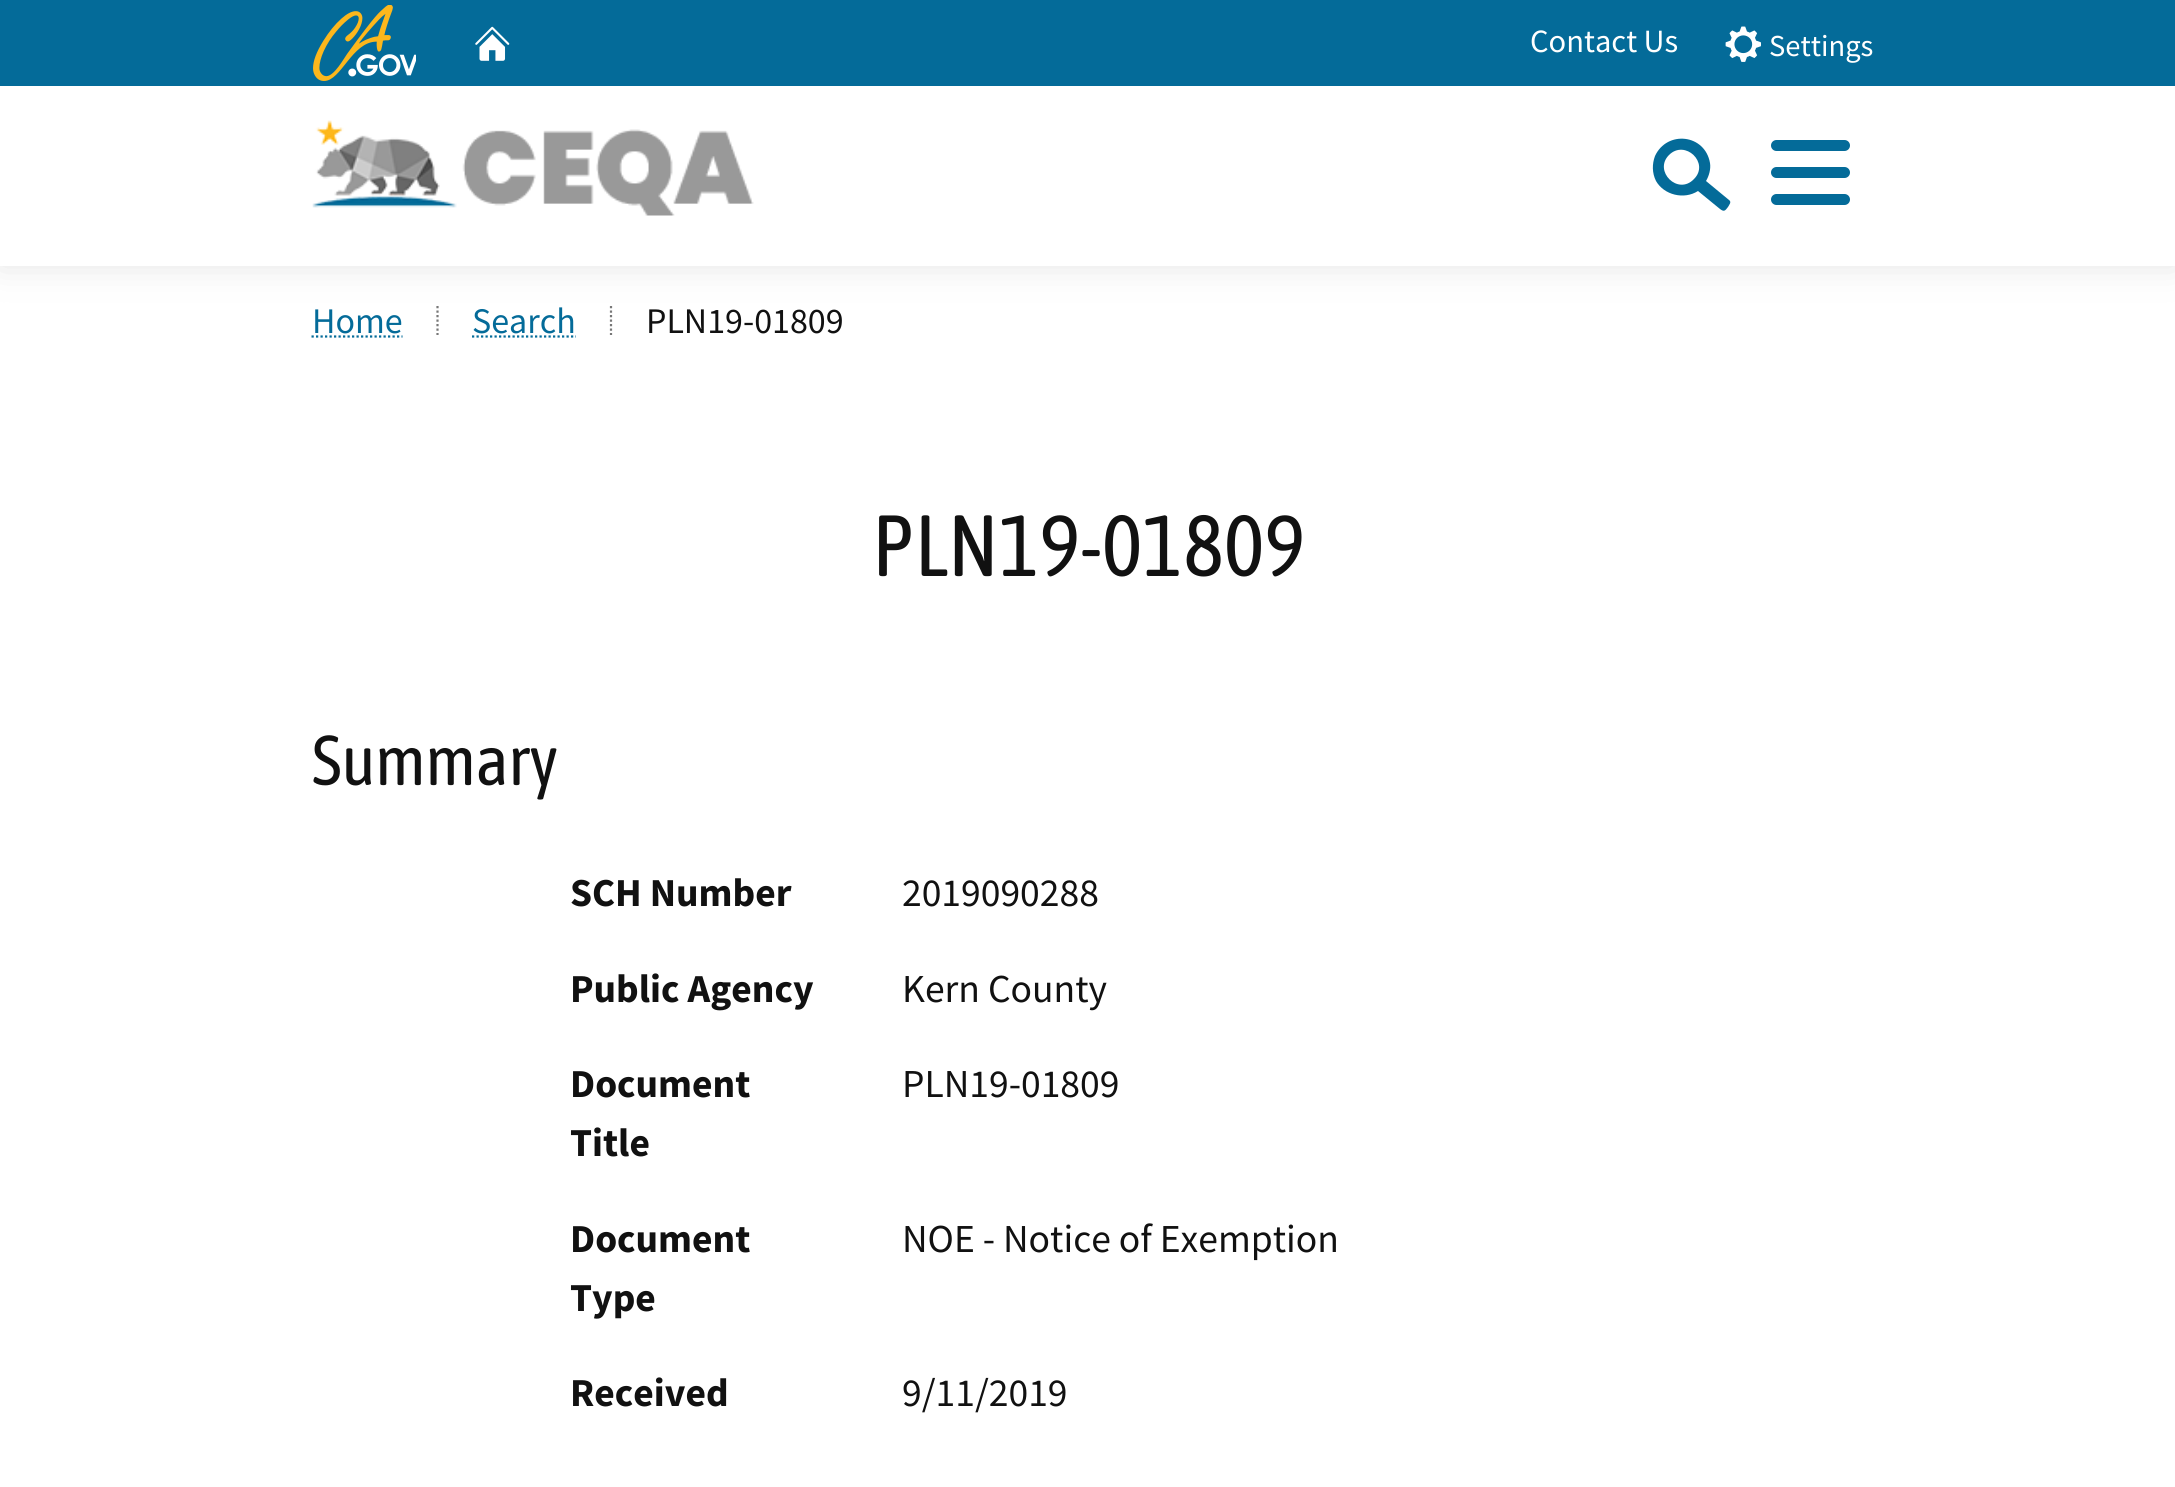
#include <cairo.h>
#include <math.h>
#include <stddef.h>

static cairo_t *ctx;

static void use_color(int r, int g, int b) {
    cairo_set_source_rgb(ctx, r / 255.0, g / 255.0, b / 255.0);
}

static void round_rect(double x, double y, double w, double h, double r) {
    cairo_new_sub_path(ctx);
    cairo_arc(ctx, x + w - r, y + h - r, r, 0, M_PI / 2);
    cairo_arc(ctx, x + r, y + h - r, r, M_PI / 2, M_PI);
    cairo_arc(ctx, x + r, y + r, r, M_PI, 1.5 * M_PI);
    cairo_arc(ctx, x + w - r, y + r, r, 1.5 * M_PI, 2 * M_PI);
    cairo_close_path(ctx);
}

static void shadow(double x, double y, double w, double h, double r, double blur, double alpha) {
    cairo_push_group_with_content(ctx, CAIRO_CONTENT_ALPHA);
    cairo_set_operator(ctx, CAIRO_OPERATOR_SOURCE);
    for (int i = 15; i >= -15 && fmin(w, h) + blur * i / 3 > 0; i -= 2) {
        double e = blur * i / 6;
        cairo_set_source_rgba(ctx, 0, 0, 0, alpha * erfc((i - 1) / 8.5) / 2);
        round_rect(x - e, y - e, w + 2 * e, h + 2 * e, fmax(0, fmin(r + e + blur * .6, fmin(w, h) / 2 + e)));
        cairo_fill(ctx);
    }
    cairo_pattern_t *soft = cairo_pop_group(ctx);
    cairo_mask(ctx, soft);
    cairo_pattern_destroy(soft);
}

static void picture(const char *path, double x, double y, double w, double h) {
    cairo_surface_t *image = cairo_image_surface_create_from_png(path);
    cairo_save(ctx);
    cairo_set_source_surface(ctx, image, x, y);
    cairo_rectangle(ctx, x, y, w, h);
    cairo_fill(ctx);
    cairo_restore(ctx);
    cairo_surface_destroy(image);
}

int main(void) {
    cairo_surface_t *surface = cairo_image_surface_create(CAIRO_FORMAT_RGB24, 2175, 1487);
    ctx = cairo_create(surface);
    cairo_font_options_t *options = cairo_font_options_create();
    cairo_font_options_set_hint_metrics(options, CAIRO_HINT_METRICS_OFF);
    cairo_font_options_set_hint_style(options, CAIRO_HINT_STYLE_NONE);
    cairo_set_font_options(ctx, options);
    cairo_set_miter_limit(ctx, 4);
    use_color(255, 255, 255);
    cairo_paint(ctx);
    cairo_new_path(ctx);
    cairo_move_to(ctx, 437.5, 306);
    cairo_line_to(ctx, 437.5, 335);
    use_color(119, 119, 119);
    cairo_set_line_width(ctx, 2.2);
    cairo_set_dash(ctx, (double[]){2.25, 2.25}, 2, 0);
    cairo_stroke(ctx);
    cairo_new_path(ctx);
    cairo_move_to(ctx, 611, 306);
    cairo_line_to(ctx, 611, 335);
    cairo_stroke(ctx);
    use_color(189, 189, 189);
    shadow(0, 0, 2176, 266, 0, 17, 0.4);
    use_color(255, 255, 255);
    cairo_rectangle(ctx, 0, 86, 2175, 180);
    cairo_fill(ctx);
    use_color(4, 107, 153);
    cairo_rectangle(ctx, 0, 0, 2175, 86);
    cairo_fill(ctx);
    picture("img1.png", 313, 5, 103, 76);
    picture("img2.png", 475, 26, 35, 35);
    cairo_select_font_face(ctx, "Source Sans Pro", CAIRO_FONT_SLANT_NORMAL, CAIRO_FONT_WEIGHT_NORMAL);
    cairo_set_font_size(ctx, 32.5);
    use_color(255, 255, 255);
    cairo_move_to(ctx, 1530, 52);
    cairo_show_text(ctx, "Contact Us");
    picture("img3.png", 1725, 26, 36, 36);
    cairo_set_font_size(ctx, 30.5);
    cairo_move_to(ctx, 1769, 56);
    cairo_show_text(ctx, "Settings");
    picture("img4.png", 312, 120, 442, 96);
    use_color(4, 107, 153);
    cairo_new_path(ctx);
    cairo_move_to(ctx, 1729, 200);
    cairo_line_to(ctx, 1706, 181);
    cairo_curve_to(ctx, 1709, 176, 1711, 169, 1710, 163);
    cairo_curve_to(ctx, 1705, 134, 1667, 130, 1655, 156);
    cairo_curve_to(ctx, 1652, 164, 1652, 173, 1656, 181);
    cairo_curve_to(ctx, 1664, 195, 1684, 200, 1698, 191);
    cairo_line_to(ctx, 1720, 209);
    cairo_curve_to(ctx, 1724, 212, 1725, 211, 1728, 207);
    cairo_curve_to(ctx, 1729, 205, 1732, 202, 1729, 200);
    cairo_close_path(ctx);
    cairo_move_to(ctx, 1694, 179);
    cairo_curve_to(ctx, 1678, 196, 1653, 171, 1669, 155);
    cairo_curve_to(ctx, 1685, 139, 1710, 163, 1694, 179);
    cairo_close_path(ctx);
    cairo_fill(ctx);
    round_rect(1771, 140, 79, 11, 5.5);
    cairo_fill(ctx);
    round_rect(1771, 167, 79, 11, 5.5);
    cairo_fill(ctx);
    round_rect(1771, 194, 79, 11, 5.5);
    cairo_fill(ctx);
    cairo_set_font_size(ctx, 36);
    cairo_move_to(ctx, 312, 333);
    cairo_show_text(ctx, "Home");
    cairo_new_path(ctx);
    cairo_move_to(ctx, 311.5, 336.5);
    cairo_line_to(ctx, 402.5, 336.5);
    cairo_stroke(ctx);
    cairo_move_to(ctx, 472, 333);
    cairo_show_text(ctx, "Search");
    cairo_new_path(ctx);
    cairo_move_to(ctx, 472, 336.5);
    cairo_line_to(ctx, 576, 336.5);
    cairo_stroke(ctx);
    use_color(17, 17, 17);
    cairo_move_to(ctx, 646, 333);
    cairo_show_text(ctx, "PLN19-01809");
    cairo_select_font_face(ctx, "Asap Condensed", CAIRO_FONT_SLANT_NORMAL, CAIRO_FONT_WEIGHT_NORMAL);
    cairo_set_font_size(ctx, 86.5);
    cairo_move_to(ctx, 872, 576);
    cairo_show_text(ctx, "PLN19-01809");
    cairo_set_font_size(ctx, 70);
    cairo_move_to(ctx, 312, 785);
    cairo_show_text(ctx, "Summary");
    cairo_select_font_face(ctx, "Source Sans Pro", CAIRO_FONT_SLANT_NORMAL, CAIRO_FONT_WEIGHT_BOLD);
    cairo_set_font_size(ctx, 39.6);
    cairo_move_to(ctx, 570, 906);
    cairo_show_text(ctx, "SCH Number");
    cairo_select_font_face(ctx, "Source Sans Pro", CAIRO_FONT_SLANT_NORMAL, CAIRO_FONT_WEIGHT_NORMAL);
    cairo_move_to(ctx, 902, 906);
    cairo_show_text(ctx, "2019090288");
    cairo_select_font_face(ctx, "Source Sans Pro", CAIRO_FONT_SLANT_NORMAL, CAIRO_FONT_WEIGHT_BOLD);
    cairo_move_to(ctx, 570, 1002);
    cairo_show_text(ctx, "Public Agency");
    cairo_select_font_face(ctx, "Source Sans Pro", CAIRO_FONT_SLANT_NORMAL, CAIRO_FONT_WEIGHT_NORMAL);
    cairo_move_to(ctx, 902, 1002);
    cairo_show_text(ctx, "Kern County");
    cairo_select_font_face(ctx, "Source Sans Pro", CAIRO_FONT_SLANT_NORMAL, CAIRO_FONT_WEIGHT_BOLD);
    cairo_move_to(ctx, 570, 1097);
    cairo_show_text(ctx, "Document");
    cairo_move_to(ctx, 570, 1156);
    cairo_show_text(ctx, "Title");
    cairo_select_font_face(ctx, "Source Sans Pro", CAIRO_FONT_SLANT_NORMAL, CAIRO_FONT_WEIGHT_NORMAL);
    cairo_move_to(ctx, 902, 1097);
    cairo_show_text(ctx, "PLN19-01809");
    cairo_select_font_face(ctx, "Source Sans Pro", CAIRO_FONT_SLANT_NORMAL, CAIRO_FONT_WEIGHT_BOLD);
    cairo_move_to(ctx, 570, 1252);
    cairo_show_text(ctx, "Document");
    cairo_move_to(ctx, 570, 1311);
    cairo_show_text(ctx, "Type");
    cairo_select_font_face(ctx, "Source Sans Pro", CAIRO_FONT_SLANT_NORMAL, CAIRO_FONT_WEIGHT_NORMAL);
    cairo_move_to(ctx, 902, 1252);
    cairo_show_text(ctx, "NOE - Notice of Exemption");
    cairo_select_font_face(ctx, "Source Sans Pro", CAIRO_FONT_SLANT_NORMAL, CAIRO_FONT_WEIGHT_BOLD);
    cairo_move_to(ctx, 570, 1406);
    cairo_show_text(ctx, "Received");
    cairo_select_font_face(ctx, "Source Sans Pro", CAIRO_FONT_SLANT_NORMAL, CAIRO_FONT_WEIGHT_NORMAL);
    cairo_move_to(ctx, 902, 1406);
    cairo_show_text(ctx, "9/11/2019");
    cairo_surface_write_to_png(surface, "result.png");
    cairo_font_options_destroy(options);
    cairo_destroy(ctx);
    cairo_surface_destroy(surface);
    return 0;
}
